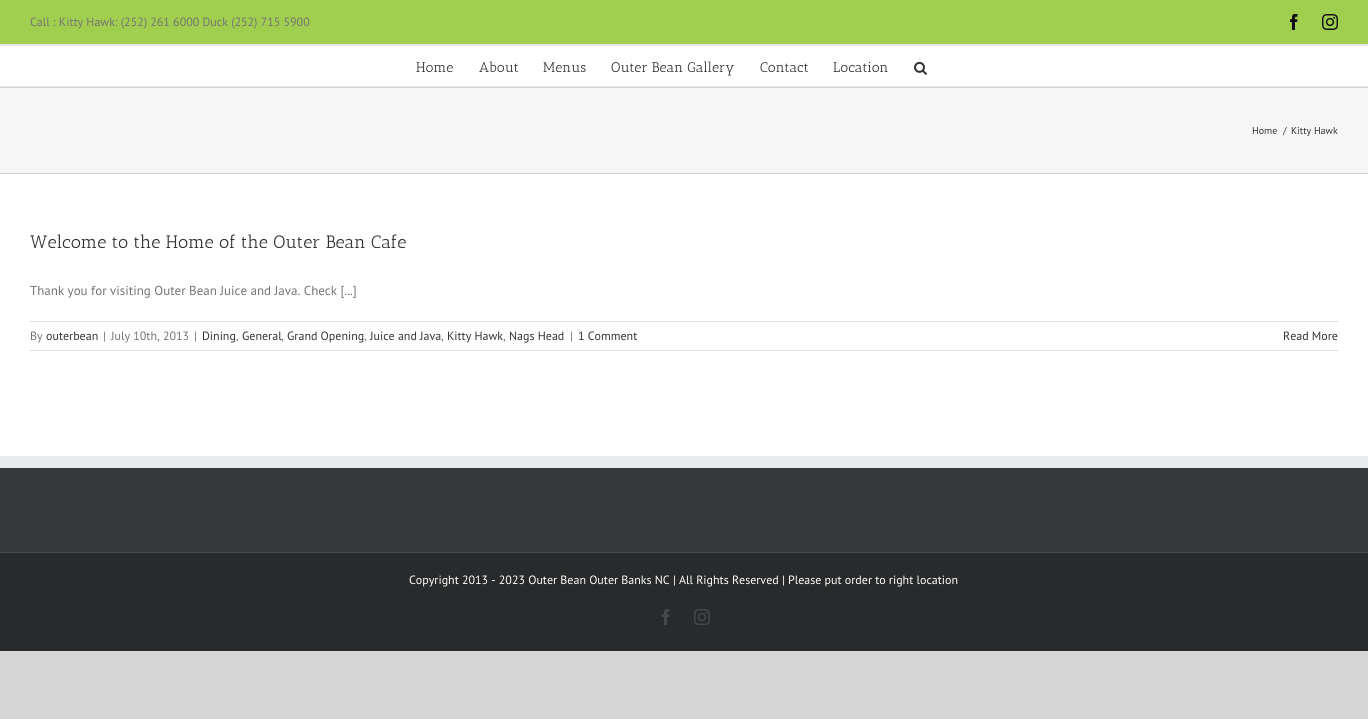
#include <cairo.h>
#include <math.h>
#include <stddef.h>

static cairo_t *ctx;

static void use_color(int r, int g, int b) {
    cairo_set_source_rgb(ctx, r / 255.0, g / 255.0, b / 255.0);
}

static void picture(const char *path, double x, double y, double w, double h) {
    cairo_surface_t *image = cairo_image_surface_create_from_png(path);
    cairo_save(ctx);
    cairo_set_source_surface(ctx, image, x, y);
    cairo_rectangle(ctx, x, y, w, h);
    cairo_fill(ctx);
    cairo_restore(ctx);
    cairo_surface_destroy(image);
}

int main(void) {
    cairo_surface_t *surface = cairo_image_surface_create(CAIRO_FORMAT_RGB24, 1368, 719);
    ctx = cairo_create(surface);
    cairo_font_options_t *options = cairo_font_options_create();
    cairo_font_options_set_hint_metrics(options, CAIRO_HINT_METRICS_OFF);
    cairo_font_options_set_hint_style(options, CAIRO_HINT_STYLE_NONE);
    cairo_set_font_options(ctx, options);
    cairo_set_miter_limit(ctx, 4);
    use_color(215, 214, 214);
    cairo_paint(ctx);
    use_color(255, 255, 255);
    cairo_rectangle(ctx, 0, 46, 1368, 410);
    cairo_fill(ctx);
    use_color(160, 206, 78);
    cairo_rectangle(ctx, 0, 0, 1368, 44);
    cairo_fill(ctx);
    use_color(229, 229, 229);
    cairo_rectangle(ctx, 0, 44, 1368, 2);
    cairo_fill(ctx);
    cairo_select_font_face(ctx, "PT Sans", CAIRO_FONT_SLANT_NORMAL, CAIRO_FONT_WEIGHT_NORMAL);
    cairo_set_font_size(ctx, 12);
    use_color(116, 116, 116);
    cairo_move_to(ctx, 30, 26);
    cairo_show_text(ctx, "Call : Kitty Hawk: (252) 261 6000 Duck (252) 715 5900");
    picture("img1.png", 1290, 14, 8, 16);
    picture("img2.png", 1322, 14, 16, 16);
    use_color(229, 229, 229);
    cairo_rectangle(ctx, 0, 86, 1368, 1);
    cairo_fill(ctx);
    cairo_select_font_face(ctx, "Antic Slab", CAIRO_FONT_SLANT_NORMAL, CAIRO_FONT_WEIGHT_NORMAL);
    cairo_set_font_size(ctx, 14);
    use_color(51, 51, 51);
    cairo_move_to(ctx, 416, 72);
    cairo_show_text(ctx, "Home");
    cairo_move_to(ctx, 479, 72);
    cairo_show_text(ctx, "About");
    cairo_move_to(ctx, 543, 72);
    cairo_show_text(ctx, "Menus");
    cairo_move_to(ctx, 611, 72);
    cairo_show_text(ctx, "Outer Bean Gallery");
    cairo_move_to(ctx, 760, 72);
    cairo_show_text(ctx, "Contact");
    cairo_move_to(ctx, 833, 72);
    cairo_show_text(ctx, "Location");
    picture("img3.png", 914, 61, 13, 14);
    use_color(246, 246, 246);
    cairo_rectangle(ctx, 0, 88, 1368, 85);
    cairo_fill(ctx);
    use_color(210, 211, 212);
    cairo_rectangle(ctx, 0, 87, 1368, 1);
    cairo_fill(ctx);
    cairo_rectangle(ctx, 0, 173, 1368, 1);
    cairo_fill(ctx);
    cairo_select_font_face(ctx, "PT Sans", CAIRO_FONT_SLANT_NORMAL, CAIRO_FONT_WEIGHT_NORMAL);
    cairo_set_font_size(ctx, 10);
    use_color(51, 51, 51);
    cairo_move_to(ctx, 1252, 134);
    cairo_show_text(ctx, "Home");
    cairo_move_to(ctx, 1283, 134);
    cairo_show_text(ctx, "/");
    cairo_move_to(ctx, 1291, 134);
    cairo_show_text(ctx, "Kitty Hawk");
    cairo_select_font_face(ctx, "Antic Slab", CAIRO_FONT_SLANT_NORMAL, CAIRO_FONT_WEIGHT_NORMAL);
    cairo_set_font_size(ctx, 18);
    cairo_move_to(ctx, 30, 248);
    cairo_show_text(ctx, "Welcome to the Home of the Outer Bean Cafe");
    cairo_select_font_face(ctx, "PT Sans", CAIRO_FONT_SLANT_NORMAL, CAIRO_FONT_WEIGHT_NORMAL);
    cairo_set_font_size(ctx, 13);
    use_color(116, 116, 116);
    cairo_move_to(ctx, 30, 295);
    cairo_show_text(ctx, "Thank you for visiting Outer Bean Juice and Java. Check [...]");
    use_color(224, 222, 222);
    cairo_rectangle(ctx, 30, 321, 1308, 1);
    cairo_fill(ctx);
    cairo_rectangle(ctx, 30, 350, 1308, 1);
    cairo_fill(ctx);
    cairo_set_font_size(ctx, 12);
    use_color(116, 116, 116);
    cairo_move_to(ctx, 30, 340);
    cairo_show_text(ctx, "By");
    use_color(51, 51, 51);
    cairo_move_to(ctx, 46, 340);
    cairo_show_text(ctx, "outerbean");
    use_color(116, 116, 116);
    cairo_move_to(ctx, 103, 340);
    cairo_show_text(ctx, "|");
    cairo_move_to(ctx, 111, 340);
    cairo_show_text(ctx, "July 10th, 2013");
    cairo_move_to(ctx, 194, 340);
    cairo_show_text(ctx, "|");
    use_color(51, 51, 51);
    cairo_move_to(ctx, 202, 340);
    cairo_show_text(ctx, "Dining");
    use_color(116, 116, 116);
    cairo_move_to(ctx, 236, 340);
    cairo_show_text(ctx, ",");
    use_color(51, 51, 51);
    cairo_move_to(ctx, 242, 340);
    cairo_show_text(ctx, "General");
    use_color(116, 116, 116);
    cairo_move_to(ctx, 281, 340);
    cairo_show_text(ctx, ",");
    use_color(51, 51, 51);
    cairo_move_to(ctx, 287, 340);
    cairo_show_text(ctx, "Grand Opening");
    use_color(116, 116, 116);
    cairo_move_to(ctx, 364, 340);
    cairo_show_text(ctx, ",");
    use_color(51, 51, 51);
    cairo_move_to(ctx, 370, 340);
    cairo_show_text(ctx, "Juice and Java");
    use_color(116, 116, 116);
    cairo_move_to(ctx, 441, 340);
    cairo_show_text(ctx, ",");
    use_color(51, 51, 51);
    cairo_move_to(ctx, 447, 340);
    cairo_show_text(ctx, "Kitty Hawk");
    use_color(116, 116, 116);
    cairo_move_to(ctx, 503, 340);
    cairo_show_text(ctx, ",");
    use_color(51, 51, 51);
    cairo_move_to(ctx, 509, 340);
    cairo_show_text(ctx, "Nags Head");
    use_color(116, 116, 116);
    cairo_move_to(ctx, 570, 340);
    cairo_show_text(ctx, "|");
    use_color(51, 51, 51);
    cairo_move_to(ctx, 578, 340);
    cairo_show_text(ctx, "1 Comment");
    cairo_move_to(ctx, 1283, 340);
    cairo_show_text(ctx, "Read More");
    use_color(54, 56, 57);
    cairo_rectangle(ctx, 0, 468, 1368, 84);
    cairo_fill(ctx);
    use_color(233, 234, 238);
    cairo_rectangle(ctx, 0, 456, 1368, 12);
    cairo_fill(ctx);
    use_color(40, 42, 43);
    cairo_rectangle(ctx, 0, 553, 1368, 98);
    cairo_fill(ctx);
    use_color(75, 76, 77);
    cairo_rectangle(ctx, 0, 552, 1368, 1);
    cairo_fill(ctx);
    use_color(255, 255, 255);
    cairo_move_to(ctx, 409, 584);
    cairo_show_text(ctx, "Copyright 2013 - 2023 Outer Bean Outer Banks NC | All Rights Reserved | Please put order to right location");
    picture("img4.png", 662, 609, 8, 16);
    picture("img5.png", 694, 609, 16, 16);
    cairo_surface_write_to_png(surface, "result.png");
    cairo_font_options_destroy(options);
    cairo_destroy(ctx);
    cairo_surface_destroy(surface);
    return 0;
}
